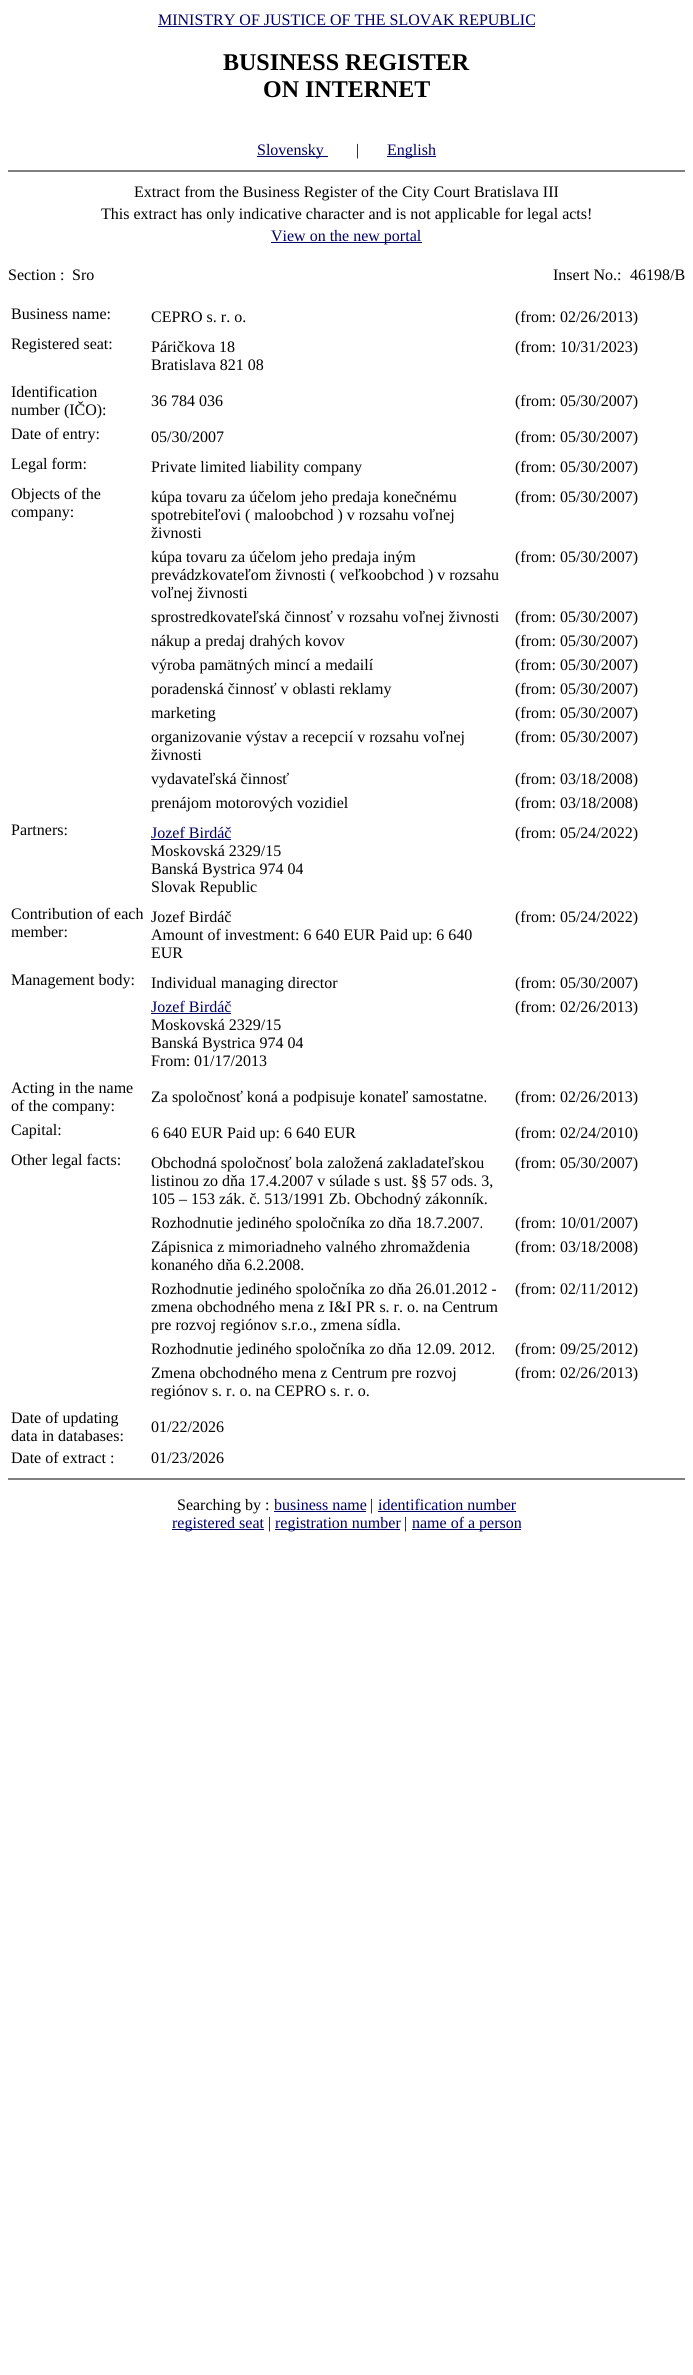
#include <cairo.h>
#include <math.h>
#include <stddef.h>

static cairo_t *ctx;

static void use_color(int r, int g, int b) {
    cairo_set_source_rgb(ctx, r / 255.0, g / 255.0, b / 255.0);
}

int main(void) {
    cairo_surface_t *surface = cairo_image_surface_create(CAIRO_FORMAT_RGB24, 693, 2375);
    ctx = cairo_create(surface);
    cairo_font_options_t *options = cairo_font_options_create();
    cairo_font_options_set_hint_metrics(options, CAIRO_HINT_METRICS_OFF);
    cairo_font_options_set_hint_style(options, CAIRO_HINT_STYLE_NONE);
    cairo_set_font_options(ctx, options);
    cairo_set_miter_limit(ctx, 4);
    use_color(255, 255, 255);
    cairo_paint(ctx);
    cairo_select_font_face(ctx, "Liberation Serif", CAIRO_FONT_SLANT_NORMAL, CAIRO_FONT_WEIGHT_NORMAL);
    cairo_set_font_size(ctx, 16);
    use_color(0, 0, 102);
    cairo_move_to(ctx, 158, 25);
    cairo_show_text(ctx, "MINISTRY OF JUSTICE OF THE SLOVAK REPUBLIC");
    cairo_rectangle(ctx, 158, 26, 377, 1);
    cairo_fill(ctx);
    cairo_select_font_face(ctx, "Liberation Serif", CAIRO_FONT_SLANT_NORMAL, CAIRO_FONT_WEIGHT_BOLD);
    cairo_set_font_size(ctx, 24);
    use_color(0, 0, 0);
    cairo_move_to(ctx, 223, 70);
    cairo_show_text(ctx, "BUSINESS REGISTER");
    cairo_move_to(ctx, 263, 97);
    cairo_show_text(ctx, "ON INTERNET");
    use_color(0, 0, 102);
    cairo_rectangle(ctx, 257, 156, 71, 1);
    cairo_fill(ctx);
    cairo_select_font_face(ctx, "Liberation Serif", CAIRO_FONT_SLANT_NORMAL, CAIRO_FONT_WEIGHT_NORMAL);
    cairo_set_font_size(ctx, 16);
    cairo_move_to(ctx, 257, 155);
    cairo_show_text(ctx, "Slovensky");
    use_color(0, 0, 0);
    cairo_move_to(ctx, 356, 155);
    cairo_show_text(ctx, "|");
    use_color(0, 0, 102);
    cairo_rectangle(ctx, 387, 156, 49, 1);
    cairo_fill(ctx);
    cairo_move_to(ctx, 387, 155);
    cairo_show_text(ctx, "English");
    use_color(128, 128, 128);
    cairo_rectangle(ctx, 8, 170, 677, 2);
    cairo_fill(ctx);
    use_color(0, 0, 0);
    cairo_move_to(ctx, 134, 197);
    cairo_show_text(ctx, "Extract from the Business Register of the City Court Bratislava III");
    cairo_move_to(ctx, 101, 219);
    cairo_show_text(ctx, "This extract has only indicative character and is not applicable for legal acts!");
    use_color(0, 0, 102);
    cairo_rectangle(ctx, 271, 242, 151, 1);
    cairo_fill(ctx);
    cairo_move_to(ctx, 271, 241);
    cairo_show_text(ctx, "View on the new portal");
    use_color(0, 0, 0);
    cairo_move_to(ctx, 8, 280);
    cairo_show_text(ctx, "Section :");
    cairo_move_to(ctx, 72, 280);
    cairo_show_text(ctx, "Sro");
    cairo_move_to(ctx, 553, 280);
    cairo_show_text(ctx, "Insert No.:");
    cairo_move_to(ctx, 630, 280);
    cairo_show_text(ctx, "46198/B");
    cairo_move_to(ctx, 11, 319);
    cairo_show_text(ctx, "Business name:");
    cairo_move_to(ctx, 151, 322);
    cairo_show_text(ctx, "CEPRO s. r. o.");
    cairo_move_to(ctx, 515, 322);
    cairo_show_text(ctx, "(from: 02/26/2013)");
    cairo_move_to(ctx, 11, 349);
    cairo_show_text(ctx, "Registered seat:");
    cairo_move_to(ctx, 151, 352);
    cairo_show_text(ctx, "Páričkova 18");
    cairo_move_to(ctx, 151, 370);
    cairo_show_text(ctx, "Bratislava 821 08");
    cairo_move_to(ctx, 515, 352);
    cairo_show_text(ctx, "(from: 10/31/2023)");
    cairo_move_to(ctx, 11, 397);
    cairo_show_text(ctx, "Identification");
    cairo_move_to(ctx, 11, 415);
    cairo_show_text(ctx, "number (IČO):");
    cairo_move_to(ctx, 151, 406);
    cairo_show_text(ctx, "36 784 036");
    cairo_move_to(ctx, 515, 406);
    cairo_show_text(ctx, "(from: 05/30/2007)");
    cairo_move_to(ctx, 11, 439);
    cairo_show_text(ctx, "Date of entry:");
    cairo_move_to(ctx, 151, 442);
    cairo_show_text(ctx, "05/30/2007");
    cairo_move_to(ctx, 515, 442);
    cairo_show_text(ctx, "(from: 05/30/2007)");
    cairo_move_to(ctx, 11, 469);
    cairo_show_text(ctx, "Legal form:");
    cairo_move_to(ctx, 151, 472);
    cairo_show_text(ctx, "Private limited liability company");
    cairo_move_to(ctx, 515, 472);
    cairo_show_text(ctx, "(from: 05/30/2007)");
    cairo_move_to(ctx, 11, 499);
    cairo_show_text(ctx, "Objects of the");
    cairo_move_to(ctx, 11, 517);
    cairo_show_text(ctx, "company:");
    cairo_move_to(ctx, 151, 502);
    cairo_show_text(ctx, "kúpa tovaru za účelom jeho predaja konečnému");
    cairo_move_to(ctx, 151, 520);
    cairo_show_text(ctx, "spotrebiteľovi ( maloobchod ) v rozsahu voľnej");
    cairo_move_to(ctx, 151, 538);
    cairo_show_text(ctx, "živnosti");
    cairo_move_to(ctx, 515, 502);
    cairo_show_text(ctx, "(from: 05/30/2007)");
    cairo_move_to(ctx, 151, 562);
    cairo_show_text(ctx, "kúpa tovaru za účelom jeho predaja iným");
    cairo_move_to(ctx, 151, 580);
    cairo_show_text(ctx, "prevádzkovateľom živnosti ( veľkoobchod ) v rozsahu");
    cairo_move_to(ctx, 151, 598);
    cairo_show_text(ctx, "voľnej živnosti");
    cairo_move_to(ctx, 515, 562);
    cairo_show_text(ctx, "(from: 05/30/2007)");
    cairo_move_to(ctx, 151, 622);
    cairo_show_text(ctx, "sprostredkovateľská činnosť v rozsahu voľnej živnosti");
    cairo_move_to(ctx, 515, 622);
    cairo_show_text(ctx, "(from: 05/30/2007)");
    cairo_move_to(ctx, 151, 646);
    cairo_show_text(ctx, "nákup a predaj drahých kovov");
    cairo_move_to(ctx, 515, 646);
    cairo_show_text(ctx, "(from: 05/30/2007)");
    cairo_move_to(ctx, 151, 670);
    cairo_show_text(ctx, "výroba pamätných mincí a medailí");
    cairo_move_to(ctx, 515, 670);
    cairo_show_text(ctx, "(from: 05/30/2007)");
    cairo_move_to(ctx, 151, 694);
    cairo_show_text(ctx, "poradenská činnosť v oblasti reklamy");
    cairo_move_to(ctx, 515, 694);
    cairo_show_text(ctx, "(from: 05/30/2007)");
    cairo_move_to(ctx, 151, 718);
    cairo_show_text(ctx, "marketing");
    cairo_move_to(ctx, 515, 718);
    cairo_show_text(ctx, "(from: 05/30/2007)");
    cairo_move_to(ctx, 151, 742);
    cairo_show_text(ctx, "organizovanie výstav a recepcií v rozsahu voľnej");
    cairo_move_to(ctx, 151, 760);
    cairo_show_text(ctx, "živnosti");
    cairo_move_to(ctx, 515, 742);
    cairo_show_text(ctx, "(from: 05/30/2007)");
    cairo_move_to(ctx, 151, 784);
    cairo_show_text(ctx, "vydavateľská činnosť");
    cairo_move_to(ctx, 515, 784);
    cairo_show_text(ctx, "(from: 03/18/2008)");
    cairo_move_to(ctx, 151, 808);
    cairo_show_text(ctx, "prenájom motorových vozidiel");
    cairo_move_to(ctx, 515, 808);
    cairo_show_text(ctx, "(from: 03/18/2008)");
    cairo_move_to(ctx, 11, 835);
    cairo_show_text(ctx, "Partners:");
    use_color(0, 0, 102);
    cairo_move_to(ctx, 151, 838);
    cairo_show_text(ctx, "Jozef Birdáč");
    cairo_rectangle(ctx, 151, 839, 80, 1);
    cairo_fill(ctx);
    use_color(0, 0, 0);
    cairo_move_to(ctx, 151, 856);
    cairo_show_text(ctx, "Moskovská 2329/15");
    cairo_move_to(ctx, 151, 874);
    cairo_show_text(ctx, "Banská Bystrica 974 04");
    cairo_move_to(ctx, 151, 892);
    cairo_show_text(ctx, "Slovak Republic");
    cairo_move_to(ctx, 515, 838);
    cairo_show_text(ctx, "(from: 05/24/2022)");
    cairo_move_to(ctx, 11, 919);
    cairo_show_text(ctx, "Contribution of each");
    cairo_move_to(ctx, 11, 937);
    cairo_show_text(ctx, "member:");
    cairo_move_to(ctx, 151, 922);
    cairo_show_text(ctx, "Jozef Birdáč");
    cairo_move_to(ctx, 151, 940);
    cairo_show_text(ctx, "Amount of investment: 6 640 EUR Paid up: 6 640");
    cairo_move_to(ctx, 151, 958);
    cairo_show_text(ctx, "EUR");
    cairo_move_to(ctx, 515, 922);
    cairo_show_text(ctx, "(from: 05/24/2022)");
    cairo_move_to(ctx, 11, 985);
    cairo_show_text(ctx, "Management body:");
    cairo_move_to(ctx, 151, 988);
    cairo_show_text(ctx, "Individual managing director");
    cairo_move_to(ctx, 515, 988);
    cairo_show_text(ctx, "(from: 05/30/2007)");
    use_color(0, 0, 102);
    cairo_move_to(ctx, 151, 1012);
    cairo_show_text(ctx, "Jozef Birdáč");
    cairo_rectangle(ctx, 151, 1013, 80, 1);
    cairo_fill(ctx);
    use_color(0, 0, 0);
    cairo_move_to(ctx, 151, 1030);
    cairo_show_text(ctx, "Moskovská 2329/15");
    cairo_move_to(ctx, 151, 1048);
    cairo_show_text(ctx, "Banská Bystrica 974 04");
    cairo_move_to(ctx, 151, 1066);
    cairo_show_text(ctx, "From: 01/17/2013");
    cairo_move_to(ctx, 515, 1012);
    cairo_show_text(ctx, "(from: 02/26/2013)");
    cairo_move_to(ctx, 11, 1093);
    cairo_show_text(ctx, "Acting in the name");
    cairo_move_to(ctx, 11, 1111);
    cairo_show_text(ctx, "of the company:");
    cairo_move_to(ctx, 151, 1102);
    cairo_show_text(ctx, "Za spoločnosť koná a podpisuje konateľ samostatne.");
    cairo_move_to(ctx, 515, 1102);
    cairo_show_text(ctx, "(from: 02/26/2013)");
    cairo_move_to(ctx, 11, 1135);
    cairo_show_text(ctx, "Capital:");
    cairo_move_to(ctx, 151, 1138);
    cairo_show_text(ctx, "6 640 EUR Paid up: 6 640 EUR");
    cairo_move_to(ctx, 515, 1138);
    cairo_show_text(ctx, "(from: 02/24/2010)");
    cairo_move_to(ctx, 11, 1165);
    cairo_show_text(ctx, "Other legal facts:");
    cairo_move_to(ctx, 151, 1168);
    cairo_show_text(ctx, "Obchodná spoločnosť bola založená zakladateľskou");
    cairo_move_to(ctx, 151, 1186);
    cairo_show_text(ctx, "listinou zo dňa 17.4.2007 v súlade s ust. §§ 57 ods. 3,");
    cairo_move_to(ctx, 151, 1204);
    cairo_show_text(ctx, "105 – 153 zák. č. 513/1991 Zb. Obchodný zákonník.");
    cairo_move_to(ctx, 515, 1168);
    cairo_show_text(ctx, "(from: 05/30/2007)");
    cairo_move_to(ctx, 151, 1228);
    cairo_show_text(ctx, "Rozhodnutie jediného spoločníka zo dňa 18.7.2007.");
    cairo_move_to(ctx, 515, 1228);
    cairo_show_text(ctx, "(from: 10/01/2007)");
    cairo_move_to(ctx, 151, 1252);
    cairo_show_text(ctx, "Zápisnica z mimoriadneho valného zhromaždenia");
    cairo_move_to(ctx, 151, 1270);
    cairo_show_text(ctx, "konaného dňa 6.2.2008.");
    cairo_move_to(ctx, 515, 1252);
    cairo_show_text(ctx, "(from: 03/18/2008)");
    cairo_move_to(ctx, 151, 1294);
    cairo_show_text(ctx, "Rozhodnutie jediného spoločníka zo dňa 26.01.2012 -");
    cairo_move_to(ctx, 151, 1312);
    cairo_show_text(ctx, "zmena obchodného mena z I&I PR s. r. o. na Centrum");
    cairo_move_to(ctx, 151, 1330);
    cairo_show_text(ctx, "pre rozvoj regiónov s.r.o., zmena sídla.");
    cairo_move_to(ctx, 515, 1294);
    cairo_show_text(ctx, "(from: 02/11/2012)");
    cairo_move_to(ctx, 151, 1354);
    cairo_show_text(ctx, "Rozhodnutie jediného spoločníka zo dňa 12.09. 2012.");
    cairo_move_to(ctx, 515, 1354);
    cairo_show_text(ctx, "(from: 09/25/2012)");
    cairo_move_to(ctx, 151, 1378);
    cairo_show_text(ctx, "Zmena obchodného mena z Centrum pre rozvoj");
    cairo_move_to(ctx, 151, 1396);
    cairo_show_text(ctx, "regiónov s. r. o. na CEPRO s. r. o.");
    cairo_move_to(ctx, 515, 1378);
    cairo_show_text(ctx, "(from: 02/26/2013)");
    cairo_move_to(ctx, 11, 1423);
    cairo_show_text(ctx, "Date of updating");
    cairo_move_to(ctx, 11, 1441);
    cairo_show_text(ctx, "data in databases:");
    cairo_move_to(ctx, 151, 1432);
    cairo_show_text(ctx, "01/22/2026");
    cairo_move_to(ctx, 11, 1463);
    cairo_show_text(ctx, "Date of extract :");
    cairo_move_to(ctx, 151, 1463);
    cairo_show_text(ctx, "01/23/2026");
    use_color(128, 128, 128);
    cairo_rectangle(ctx, 8, 1478, 677, 2);
    cairo_fill(ctx);
    use_color(0, 0, 0);
    cairo_move_to(ctx, 177, 1510);
    cairo_show_text(ctx, "Searching by :");
    use_color(0, 0, 102);
    cairo_move_to(ctx, 274, 1510);
    cairo_show_text(ctx, "business name");
    cairo_rectangle(ctx, 274, 1511, 92, 1);
    cairo_fill(ctx);
    use_color(0, 0, 0);
    cairo_move_to(ctx, 370, 1510);
    cairo_show_text(ctx, "|");
    use_color(0, 0, 102);
    cairo_move_to(ctx, 378, 1510);
    cairo_show_text(ctx, "identification number");
    cairo_rectangle(ctx, 378, 1511, 138, 1);
    cairo_fill(ctx);
    cairo_rectangle(ctx, 172, 1529, 92, 1);
    cairo_fill(ctx);
    cairo_move_to(ctx, 172, 1528);
    cairo_show_text(ctx, "registered seat");
    use_color(0, 0, 0);
    cairo_move_to(ctx, 268, 1528);
    cairo_show_text(ctx, "|");
    use_color(0, 0, 102);
    cairo_rectangle(ctx, 275, 1529, 125, 1);
    cairo_fill(ctx);
    cairo_move_to(ctx, 275, 1528);
    cairo_show_text(ctx, "registration number");
    use_color(0, 0, 0);
    cairo_move_to(ctx, 404, 1528);
    cairo_show_text(ctx, "|");
    use_color(0, 0, 102);
    cairo_rectangle(ctx, 412, 1529, 109, 1);
    cairo_fill(ctx);
    cairo_move_to(ctx, 412, 1528);
    cairo_show_text(ctx, "name of a person");
    cairo_surface_write_to_png(surface, "result.png");
    cairo_font_options_destroy(options);
    cairo_destroy(ctx);
    cairo_surface_destroy(surface);
    return 0;
}
